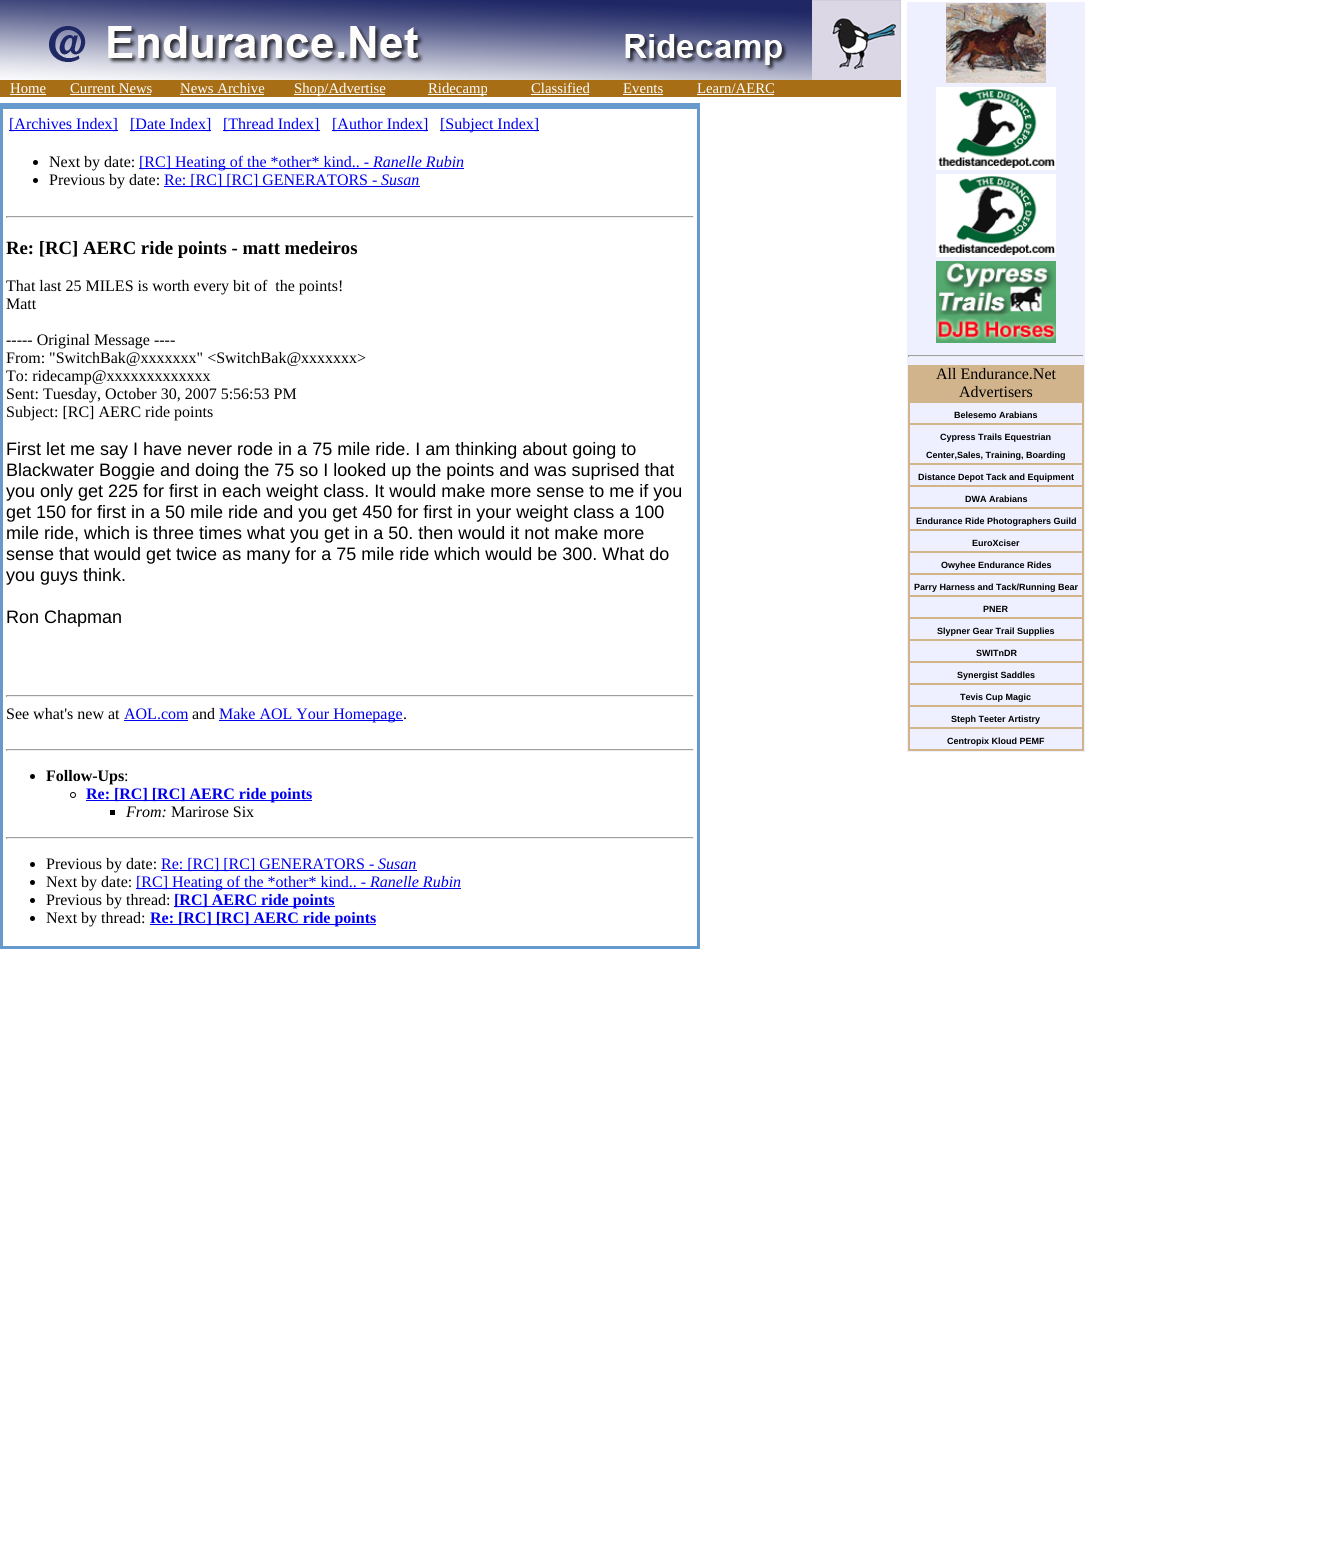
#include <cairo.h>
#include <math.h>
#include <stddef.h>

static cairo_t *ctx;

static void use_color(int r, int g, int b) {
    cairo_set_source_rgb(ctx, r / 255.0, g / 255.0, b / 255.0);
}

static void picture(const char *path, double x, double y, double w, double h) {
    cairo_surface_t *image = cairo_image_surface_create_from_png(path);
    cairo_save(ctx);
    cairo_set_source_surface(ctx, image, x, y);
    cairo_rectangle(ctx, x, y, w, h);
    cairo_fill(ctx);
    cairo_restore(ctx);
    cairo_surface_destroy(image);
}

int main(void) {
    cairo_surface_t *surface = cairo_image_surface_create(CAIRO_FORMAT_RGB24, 1329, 1544);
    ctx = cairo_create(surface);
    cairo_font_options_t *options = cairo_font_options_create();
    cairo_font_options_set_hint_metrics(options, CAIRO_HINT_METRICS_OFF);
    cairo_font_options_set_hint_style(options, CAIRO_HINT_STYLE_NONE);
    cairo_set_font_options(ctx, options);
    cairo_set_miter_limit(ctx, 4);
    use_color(255, 255, 255);
    cairo_paint(ctx);
    picture("img1.png", 0, 0, 587, 80);
    picture("img2.png", 587, 0, 314, 80);
    use_color(168, 110, 22);
    cairo_rectangle(ctx, 0, 80, 901, 17);
    cairo_fill(ctx);
    cairo_select_font_face(ctx, "Liberation Serif", CAIRO_FONT_SLANT_NORMAL, CAIRO_FONT_WEIGHT_NORMAL);
    cairo_set_font_size(ctx, 14.75);
    use_color(255, 255, 255);
    cairo_move_to(ctx, 10, 93);
    cairo_show_text(ctx, "Home");
    cairo_rectangle(ctx, 10, 94, 36, 1);
    cairo_fill(ctx);
    cairo_move_to(ctx, 70, 93);
    cairo_show_text(ctx, "Current News");
    cairo_rectangle(ctx, 70, 94, 81, 1);
    cairo_fill(ctx);
    cairo_move_to(ctx, 180, 93);
    cairo_show_text(ctx, "News Archive");
    cairo_rectangle(ctx, 180, 94, 84, 1);
    cairo_fill(ctx);
    cairo_rectangle(ctx, 294, 94, 91, 1);
    cairo_fill(ctx);
    cairo_move_to(ctx, 294, 93);
    cairo_show_text(ctx, "Shop/Advertise");
    cairo_rectangle(ctx, 428, 94, 59, 1);
    cairo_fill(ctx);
    cairo_move_to(ctx, 428, 93);
    cairo_show_text(ctx, "Ridecamp");
    cairo_move_to(ctx, 531, 93);
    cairo_show_text(ctx, "Classified");
    cairo_rectangle(ctx, 531, 94, 58, 1);
    cairo_fill(ctx);
    cairo_move_to(ctx, 623, 93);
    cairo_show_text(ctx, "Events");
    cairo_rectangle(ctx, 623, 94, 40, 1);
    cairo_fill(ctx);
    cairo_move_to(ctx, 697, 93);
    cairo_show_text(ctx, "Learn/AERC");
    cairo_rectangle(ctx, 697, 94, 77, 1);
    cairo_fill(ctx);
    use_color(102, 153, 204);
    cairo_rectangle(ctx, 0, 103, 700, 846);
    cairo_fill(ctx);
    use_color(255, 255, 255);
    cairo_rectangle(ctx, 3, 109, 694, 837);
    cairo_fill(ctx);
    use_color(0, 0, 238);
    cairo_rectangle(ctx, 9, 130, 109, 1);
    cairo_fill(ctx);
    cairo_set_font_size(ctx, 16);
    cairo_move_to(ctx, 9, 129);
    cairo_show_text(ctx, "[Archives Index]");
    cairo_rectangle(ctx, 130, 130, 81, 1);
    cairo_fill(ctx);
    cairo_move_to(ctx, 130, 129);
    cairo_show_text(ctx, "[Date Index]");
    cairo_rectangle(ctx, 223, 130, 97, 1);
    cairo_fill(ctx);
    cairo_move_to(ctx, 223, 129);
    cairo_show_text(ctx, "[Thread Index]");
    cairo_rectangle(ctx, 332, 130, 96, 1);
    cairo_fill(ctx);
    cairo_move_to(ctx, 332, 129);
    cairo_show_text(ctx, "[Author Index]");
    cairo_rectangle(ctx, 440, 130, 99, 1);
    cairo_fill(ctx);
    cairo_move_to(ctx, 440, 129);
    cairo_show_text(ctx, "[Subject Index]");
    use_color(0, 0, 0);
    cairo_new_path(ctx);
    cairo_arc(ctx, 35.5, 162.5, 2.5, 0, 2 * M_PI);
    cairo_fill(ctx);
    cairo_move_to(ctx, 49, 167);
    cairo_show_text(ctx, "Next by date:");
    use_color(0, 0, 238);
    cairo_rectangle(ctx, 139, 168, 325, 1);
    cairo_fill(ctx);
    cairo_move_to(ctx, 139, 167);
    cairo_show_text(ctx, "[RC] Heating of the *other* kind.. -");
    cairo_select_font_face(ctx, "Liberation Serif", CAIRO_FONT_SLANT_ITALIC, CAIRO_FONT_WEIGHT_NORMAL);
    cairo_move_to(ctx, 373, 167);
    cairo_show_text(ctx, "Ranelle Rubin");
    use_color(0, 0, 0);
    cairo_new_path(ctx);
    cairo_arc(ctx, 35.5, 180.5, 2.5, 0, 2 * M_PI);
    cairo_fill(ctx);
    cairo_select_font_face(ctx, "Liberation Serif", CAIRO_FONT_SLANT_NORMAL, CAIRO_FONT_WEIGHT_NORMAL);
    cairo_move_to(ctx, 49, 185);
    cairo_show_text(ctx, "Previous by date:");
    use_color(0, 0, 238);
    cairo_rectangle(ctx, 164, 186, 256, 1);
    cairo_fill(ctx);
    cairo_move_to(ctx, 164, 185);
    cairo_show_text(ctx, "Re: [RC] [RC] GENERATORS -");
    cairo_select_font_face(ctx, "Liberation Serif", CAIRO_FONT_SLANT_ITALIC, CAIRO_FONT_WEIGHT_NORMAL);
    cairo_move_to(ctx, 381, 185);
    cairo_show_text(ctx, "Susan");
    use_color(159, 159, 159);
    cairo_rectangle(ctx, 6, 216, 688, 1);
    cairo_fill(ctx);
    use_color(238, 238, 238);
    cairo_rectangle(ctx, 693, 216, 1, 2);
    cairo_fill(ctx);
    cairo_rectangle(ctx, 6, 217, 688, 1);
    cairo_fill(ctx);
    use_color(159, 159, 159);
    cairo_rectangle(ctx, 6, 216, 1, 2);
    cairo_fill(ctx);
    cairo_select_font_face(ctx, "Liberation Serif", CAIRO_FONT_SLANT_NORMAL, CAIRO_FONT_WEIGHT_BOLD);
    cairo_set_font_size(ctx, 18.75);
    use_color(0, 0, 0);
    cairo_move_to(ctx, 6, 254);
    cairo_show_text(ctx, "Re: [RC] AERC ride points - matt medeiros");
    cairo_select_font_face(ctx, "Liberation Serif", CAIRO_FONT_SLANT_NORMAL, CAIRO_FONT_WEIGHT_NORMAL);
    cairo_set_font_size(ctx, 16);
    cairo_move_to(ctx, 6, 291);
    cairo_show_text(ctx, "That last 25 MILES is worth every bit of  the points!");
    cairo_move_to(ctx, 6, 309);
    cairo_show_text(ctx, "Matt");
    cairo_move_to(ctx, 6, 345);
    cairo_show_text(ctx, "----- Original Message ----");
    cairo_move_to(ctx, 6, 363);
    cairo_show_text(ctx, "From: \"SwitchBak@xxxxxxx\" <SwitchBak@xxxxxxx>");
    cairo_move_to(ctx, 6, 381);
    cairo_show_text(ctx, "To: ridecamp@xxxxxxxxxxxxx");
    cairo_move_to(ctx, 6, 399);
    cairo_show_text(ctx, "Sent: Tuesday, October 30, 2007 5:56:53 PM");
    cairo_move_to(ctx, 6, 417);
    cairo_show_text(ctx, "Subject: [RC] AERC ride points");
    cairo_select_font_face(ctx, "Liberation Sans", CAIRO_FONT_SLANT_NORMAL, CAIRO_FONT_WEIGHT_NORMAL);
    cairo_set_font_size(ctx, 18);
    cairo_move_to(ctx, 6, 455);
    cairo_show_text(ctx, "First let me say I have never rode in a 75 mile ride. I am thinking about going to");
    cairo_move_to(ctx, 6, 476);
    cairo_show_text(ctx, "Blackwater Boggie and doing the 75 so I looked up the points and was suprised that");
    cairo_move_to(ctx, 6, 497);
    cairo_show_text(ctx, "you only get 225 for first in each weight class. It would make more sense to me if you");
    cairo_move_to(ctx, 6, 518);
    cairo_show_text(ctx, "get 150 for first in a 50 mile ride and you get 450 for first in your weight class a 100");
    cairo_move_to(ctx, 6, 539);
    cairo_show_text(ctx, "mile ride, which is three times what you get in a 50. then would it not make more");
    cairo_move_to(ctx, 6, 560);
    cairo_show_text(ctx, "sense that would get twice as many for a 75 mile ride which would be 300. What do");
    cairo_move_to(ctx, 6, 581);
    cairo_show_text(ctx, "you guys think.");
    cairo_move_to(ctx, 6, 623);
    cairo_show_text(ctx, "Ron Chapman");
    use_color(159, 159, 159);
    cairo_rectangle(ctx, 6, 695, 688, 1);
    cairo_fill(ctx);
    use_color(238, 238, 238);
    cairo_rectangle(ctx, 693, 695, 1, 2);
    cairo_fill(ctx);
    cairo_rectangle(ctx, 6, 696, 688, 1);
    cairo_fill(ctx);
    use_color(159, 159, 159);
    cairo_rectangle(ctx, 6, 695, 1, 2);
    cairo_fill(ctx);
    cairo_select_font_face(ctx, "Liberation Serif", CAIRO_FONT_SLANT_NORMAL, CAIRO_FONT_WEIGHT_NORMAL);
    cairo_set_font_size(ctx, 16);
    use_color(0, 0, 0);
    cairo_move_to(ctx, 6, 719);
    cairo_show_text(ctx, "See what's new at");
    use_color(0, 0, 238);
    cairo_move_to(ctx, 124, 719);
    cairo_show_text(ctx, "AOL.com");
    cairo_rectangle(ctx, 124, 720, 64, 1);
    cairo_fill(ctx);
    use_color(0, 0, 0);
    cairo_move_to(ctx, 192, 719);
    cairo_show_text(ctx, "and");
    use_color(0, 0, 238);
    cairo_rectangle(ctx, 219, 720, 184, 1);
    cairo_fill(ctx);
    cairo_move_to(ctx, 219, 719);
    cairo_show_text(ctx, "Make AOL Your Homepage");
    use_color(0, 0, 0);
    cairo_move_to(ctx, 403, 719);
    cairo_show_text(ctx, ".");
    use_color(159, 159, 159);
    cairo_rectangle(ctx, 6, 749, 688, 1);
    cairo_fill(ctx);
    use_color(238, 238, 238);
    cairo_rectangle(ctx, 693, 749, 1, 2);
    cairo_fill(ctx);
    cairo_rectangle(ctx, 6, 750, 688, 1);
    cairo_fill(ctx);
    use_color(159, 159, 159);
    cairo_rectangle(ctx, 6, 749, 1, 2);
    cairo_fill(ctx);
    use_color(0, 0, 0);
    cairo_arc(ctx, 32.5, 776.5, 2.5, 0, 2 * M_PI);
    cairo_fill(ctx);
    cairo_select_font_face(ctx, "Liberation Serif", CAIRO_FONT_SLANT_NORMAL, CAIRO_FONT_WEIGHT_BOLD);
    cairo_move_to(ctx, 46, 781);
    cairo_show_text(ctx, "Follow-Ups");
    cairo_select_font_face(ctx, "Liberation Serif", CAIRO_FONT_SLANT_NORMAL, CAIRO_FONT_WEIGHT_NORMAL);
    cairo_move_to(ctx, 124, 781);
    cairo_show_text(ctx, ":");
    cairo_new_path(ctx);
    cairo_arc(ctx, 73, 795, 2.5, 0, 2 * M_PI);
    cairo_set_line_width(ctx, 1);
    cairo_stroke(ctx);
    use_color(0, 0, 238);
    cairo_rectangle(ctx, 86, 800, 226, 1);
    cairo_fill(ctx);
    cairo_select_font_face(ctx, "Liberation Serif", CAIRO_FONT_SLANT_NORMAL, CAIRO_FONT_WEIGHT_BOLD);
    cairo_move_to(ctx, 86, 799);
    cairo_show_text(ctx, "Re: [RC] [RC] AERC ride points");
    use_color(0, 0, 0);
    cairo_rectangle(ctx, 110, 810, 5, 5);
    cairo_fill(ctx);
    cairo_select_font_face(ctx, "Liberation Serif", CAIRO_FONT_SLANT_ITALIC, CAIRO_FONT_WEIGHT_NORMAL);
    cairo_move_to(ctx, 126, 817);
    cairo_show_text(ctx, "From:");
    cairo_select_font_face(ctx, "Liberation Serif", CAIRO_FONT_SLANT_NORMAL, CAIRO_FONT_WEIGHT_NORMAL);
    cairo_move_to(ctx, 171, 817);
    cairo_show_text(ctx, "Marirose Six");
    use_color(159, 159, 159);
    cairo_rectangle(ctx, 6, 837, 688, 1);
    cairo_fill(ctx);
    use_color(238, 238, 238);
    cairo_rectangle(ctx, 693, 837, 1, 2);
    cairo_fill(ctx);
    cairo_rectangle(ctx, 6, 838, 688, 1);
    cairo_fill(ctx);
    use_color(159, 159, 159);
    cairo_rectangle(ctx, 6, 837, 1, 2);
    cairo_fill(ctx);
    use_color(0, 0, 0);
    cairo_arc(ctx, 32.5, 864.5, 2.5, 0, 2 * M_PI);
    cairo_fill(ctx);
    cairo_move_to(ctx, 46, 869);
    cairo_show_text(ctx, "Previous by date:");
    use_color(0, 0, 238);
    cairo_rectangle(ctx, 161, 870, 256, 1);
    cairo_fill(ctx);
    cairo_move_to(ctx, 161, 869);
    cairo_show_text(ctx, "Re: [RC] [RC] GENERATORS -");
    cairo_select_font_face(ctx, "Liberation Serif", CAIRO_FONT_SLANT_ITALIC, CAIRO_FONT_WEIGHT_NORMAL);
    cairo_move_to(ctx, 378, 869);
    cairo_show_text(ctx, "Susan");
    use_color(0, 0, 0);
    cairo_new_path(ctx);
    cairo_arc(ctx, 32.5, 882.5, 2.5, 0, 2 * M_PI);
    cairo_fill(ctx);
    cairo_select_font_face(ctx, "Liberation Serif", CAIRO_FONT_SLANT_NORMAL, CAIRO_FONT_WEIGHT_NORMAL);
    cairo_move_to(ctx, 46, 887);
    cairo_show_text(ctx, "Next by date:");
    use_color(0, 0, 238);
    cairo_rectangle(ctx, 136, 888, 325, 1);
    cairo_fill(ctx);
    cairo_move_to(ctx, 136, 887);
    cairo_show_text(ctx, "[RC] Heating of the *other* kind.. -");
    cairo_select_font_face(ctx, "Liberation Serif", CAIRO_FONT_SLANT_ITALIC, CAIRO_FONT_WEIGHT_NORMAL);
    cairo_move_to(ctx, 370, 887);
    cairo_show_text(ctx, "Ranelle Rubin");
    use_color(0, 0, 0);
    cairo_new_path(ctx);
    cairo_arc(ctx, 32.5, 900.5, 2.5, 0, 2 * M_PI);
    cairo_fill(ctx);
    cairo_select_font_face(ctx, "Liberation Serif", CAIRO_FONT_SLANT_NORMAL, CAIRO_FONT_WEIGHT_NORMAL);
    cairo_move_to(ctx, 46, 905);
    cairo_show_text(ctx, "Previous by thread:");
    use_color(0, 0, 238);
    cairo_rectangle(ctx, 174, 906, 161, 1);
    cairo_fill(ctx);
    cairo_select_font_face(ctx, "Liberation Serif", CAIRO_FONT_SLANT_NORMAL, CAIRO_FONT_WEIGHT_BOLD);
    cairo_move_to(ctx, 174, 905);
    cairo_show_text(ctx, "[RC] AERC ride points");
    use_color(0, 0, 0);
    cairo_new_path(ctx);
    cairo_arc(ctx, 32.5, 918.5, 2.5, 0, 2 * M_PI);
    cairo_fill(ctx);
    cairo_select_font_face(ctx, "Liberation Serif", CAIRO_FONT_SLANT_NORMAL, CAIRO_FONT_WEIGHT_NORMAL);
    cairo_move_to(ctx, 46, 923);
    cairo_show_text(ctx, "Next by thread:");
    use_color(0, 0, 238);
    cairo_rectangle(ctx, 150, 924, 226, 1);
    cairo_fill(ctx);
    cairo_select_font_face(ctx, "Liberation Serif", CAIRO_FONT_SLANT_NORMAL, CAIRO_FONT_WEIGHT_BOLD);
    cairo_move_to(ctx, 150, 923);
    cairo_show_text(ctx, "Re: [RC] [RC] AERC ride points");
    use_color(238, 239, 255);
    cairo_rectangle(ctx, 907, 2, 178, 750);
    cairo_fill(ctx);
    picture("img3.png", 946, 3, 100, 80);
    picture("img4.png", 936, 87, 120, 83);
    picture("img4.png", 936, 174, 120, 83);
    picture("img5.png", 936, 261, 120, 82);
    use_color(159, 159, 159);
    cairo_rectangle(ctx, 908, 355, 176, 1);
    cairo_fill(ctx);
    use_color(238, 238, 238);
    cairo_rectangle(ctx, 1083, 355, 1, 2);
    cairo_fill(ctx);
    cairo_rectangle(ctx, 908, 356, 176, 1);
    cairo_fill(ctx);
    use_color(159, 159, 159);
    cairo_rectangle(ctx, 908, 355, 1, 2);
    cairo_fill(ctx);
    use_color(210, 180, 140);
    cairo_rectangle(ctx, 908, 365, 176, 386);
    cairo_fill(ctx);
    cairo_select_font_face(ctx, "Liberation Serif", CAIRO_FONT_SLANT_NORMAL, CAIRO_FONT_WEIGHT_NORMAL);
    use_color(0, 0, 0);
    cairo_move_to(ctx, 936, 379);
    cairo_show_text(ctx, "All Endurance.Net");
    cairo_move_to(ctx, 959, 397);
    cairo_show_text(ctx, "Advertisers");
    use_color(238, 239, 255);
    cairo_rectangle(ctx, 910, 403, 172, 20);
    cairo_fill(ctx);
    cairo_select_font_face(ctx, "Liberation Sans", CAIRO_FONT_SLANT_NORMAL, CAIRO_FONT_WEIGHT_BOLD);
    cairo_set_font_size(ctx, 9);
    use_color(0, 0, 0);
    cairo_move_to(ctx, 954, 418);
    cairo_show_text(ctx, "Belesemo Arabians");
    use_color(238, 239, 255);
    cairo_rectangle(ctx, 910, 425, 172, 38);
    cairo_fill(ctx);
    use_color(0, 0, 0);
    cairo_move_to(ctx, 940, 440);
    cairo_show_text(ctx, "Cypress Trails Equestrian");
    cairo_move_to(ctx, 926, 458);
    cairo_show_text(ctx, "Center,Sales, Training, Boarding");
    use_color(238, 239, 255);
    cairo_rectangle(ctx, 910, 465, 172, 20);
    cairo_fill(ctx);
    use_color(0, 0, 0);
    cairo_move_to(ctx, 918, 480);
    cairo_show_text(ctx, "Distance Depot Tack and Equipment");
    use_color(238, 239, 255);
    cairo_rectangle(ctx, 910, 487, 172, 20);
    cairo_fill(ctx);
    use_color(0, 0, 0);
    cairo_move_to(ctx, 965, 502);
    cairo_show_text(ctx, "DWA Arabians");
    use_color(238, 239, 255);
    cairo_rectangle(ctx, 910, 509, 172, 20);
    cairo_fill(ctx);
    use_color(0, 0, 0);
    cairo_move_to(ctx, 916, 524);
    cairo_show_text(ctx, "Endurance Ride Photographers Guild");
    use_color(238, 239, 255);
    cairo_rectangle(ctx, 910, 531, 172, 20);
    cairo_fill(ctx);
    use_color(0, 0, 0);
    cairo_move_to(ctx, 972, 546);
    cairo_show_text(ctx, "EuroXciser");
    use_color(238, 239, 255);
    cairo_rectangle(ctx, 910, 553, 172, 20);
    cairo_fill(ctx);
    use_color(0, 0, 0);
    cairo_move_to(ctx, 941, 568);
    cairo_show_text(ctx, "Owyhee Endurance Rides");
    use_color(238, 239, 255);
    cairo_rectangle(ctx, 910, 575, 172, 20);
    cairo_fill(ctx);
    use_color(0, 0, 0);
    cairo_move_to(ctx, 914, 590);
    cairo_show_text(ctx, "Parry Harness and Tack/Running Bear");
    use_color(238, 239, 255);
    cairo_rectangle(ctx, 910, 597, 172, 20);
    cairo_fill(ctx);
    use_color(0, 0, 0);
    cairo_move_to(ctx, 983, 612);
    cairo_show_text(ctx, "PNER");
    use_color(238, 239, 255);
    cairo_rectangle(ctx, 910, 619, 172, 20);
    cairo_fill(ctx);
    use_color(0, 0, 0);
    cairo_move_to(ctx, 937, 634);
    cairo_show_text(ctx, "Slypner Gear Trail Supplies");
    use_color(238, 239, 255);
    cairo_rectangle(ctx, 910, 641, 172, 20);
    cairo_fill(ctx);
    use_color(0, 0, 0);
    cairo_move_to(ctx, 976, 656);
    cairo_show_text(ctx, "SWITnDR");
    use_color(238, 239, 255);
    cairo_rectangle(ctx, 910, 663, 172, 20);
    cairo_fill(ctx);
    use_color(0, 0, 0);
    cairo_move_to(ctx, 957, 678);
    cairo_show_text(ctx, "Synergist Saddles");
    use_color(238, 239, 255);
    cairo_rectangle(ctx, 910, 685, 172, 20);
    cairo_fill(ctx);
    use_color(0, 0, 0);
    cairo_move_to(ctx, 960, 700);
    cairo_show_text(ctx, "Tevis Cup Magic");
    use_color(238, 239, 255);
    cairo_rectangle(ctx, 910, 707, 172, 20);
    cairo_fill(ctx);
    use_color(0, 0, 0);
    cairo_move_to(ctx, 951, 722);
    cairo_show_text(ctx, "Steph Teeter Artistry");
    use_color(238, 239, 255);
    cairo_rectangle(ctx, 910, 729, 172, 20);
    cairo_fill(ctx);
    use_color(0, 0, 0);
    cairo_move_to(ctx, 947, 744);
    cairo_show_text(ctx, "Centropix Kloud PEMF");
    cairo_surface_write_to_png(surface, "result.png");
    cairo_font_options_destroy(options);
    cairo_destroy(ctx);
    cairo_surface_destroy(surface);
    return 0;
}
